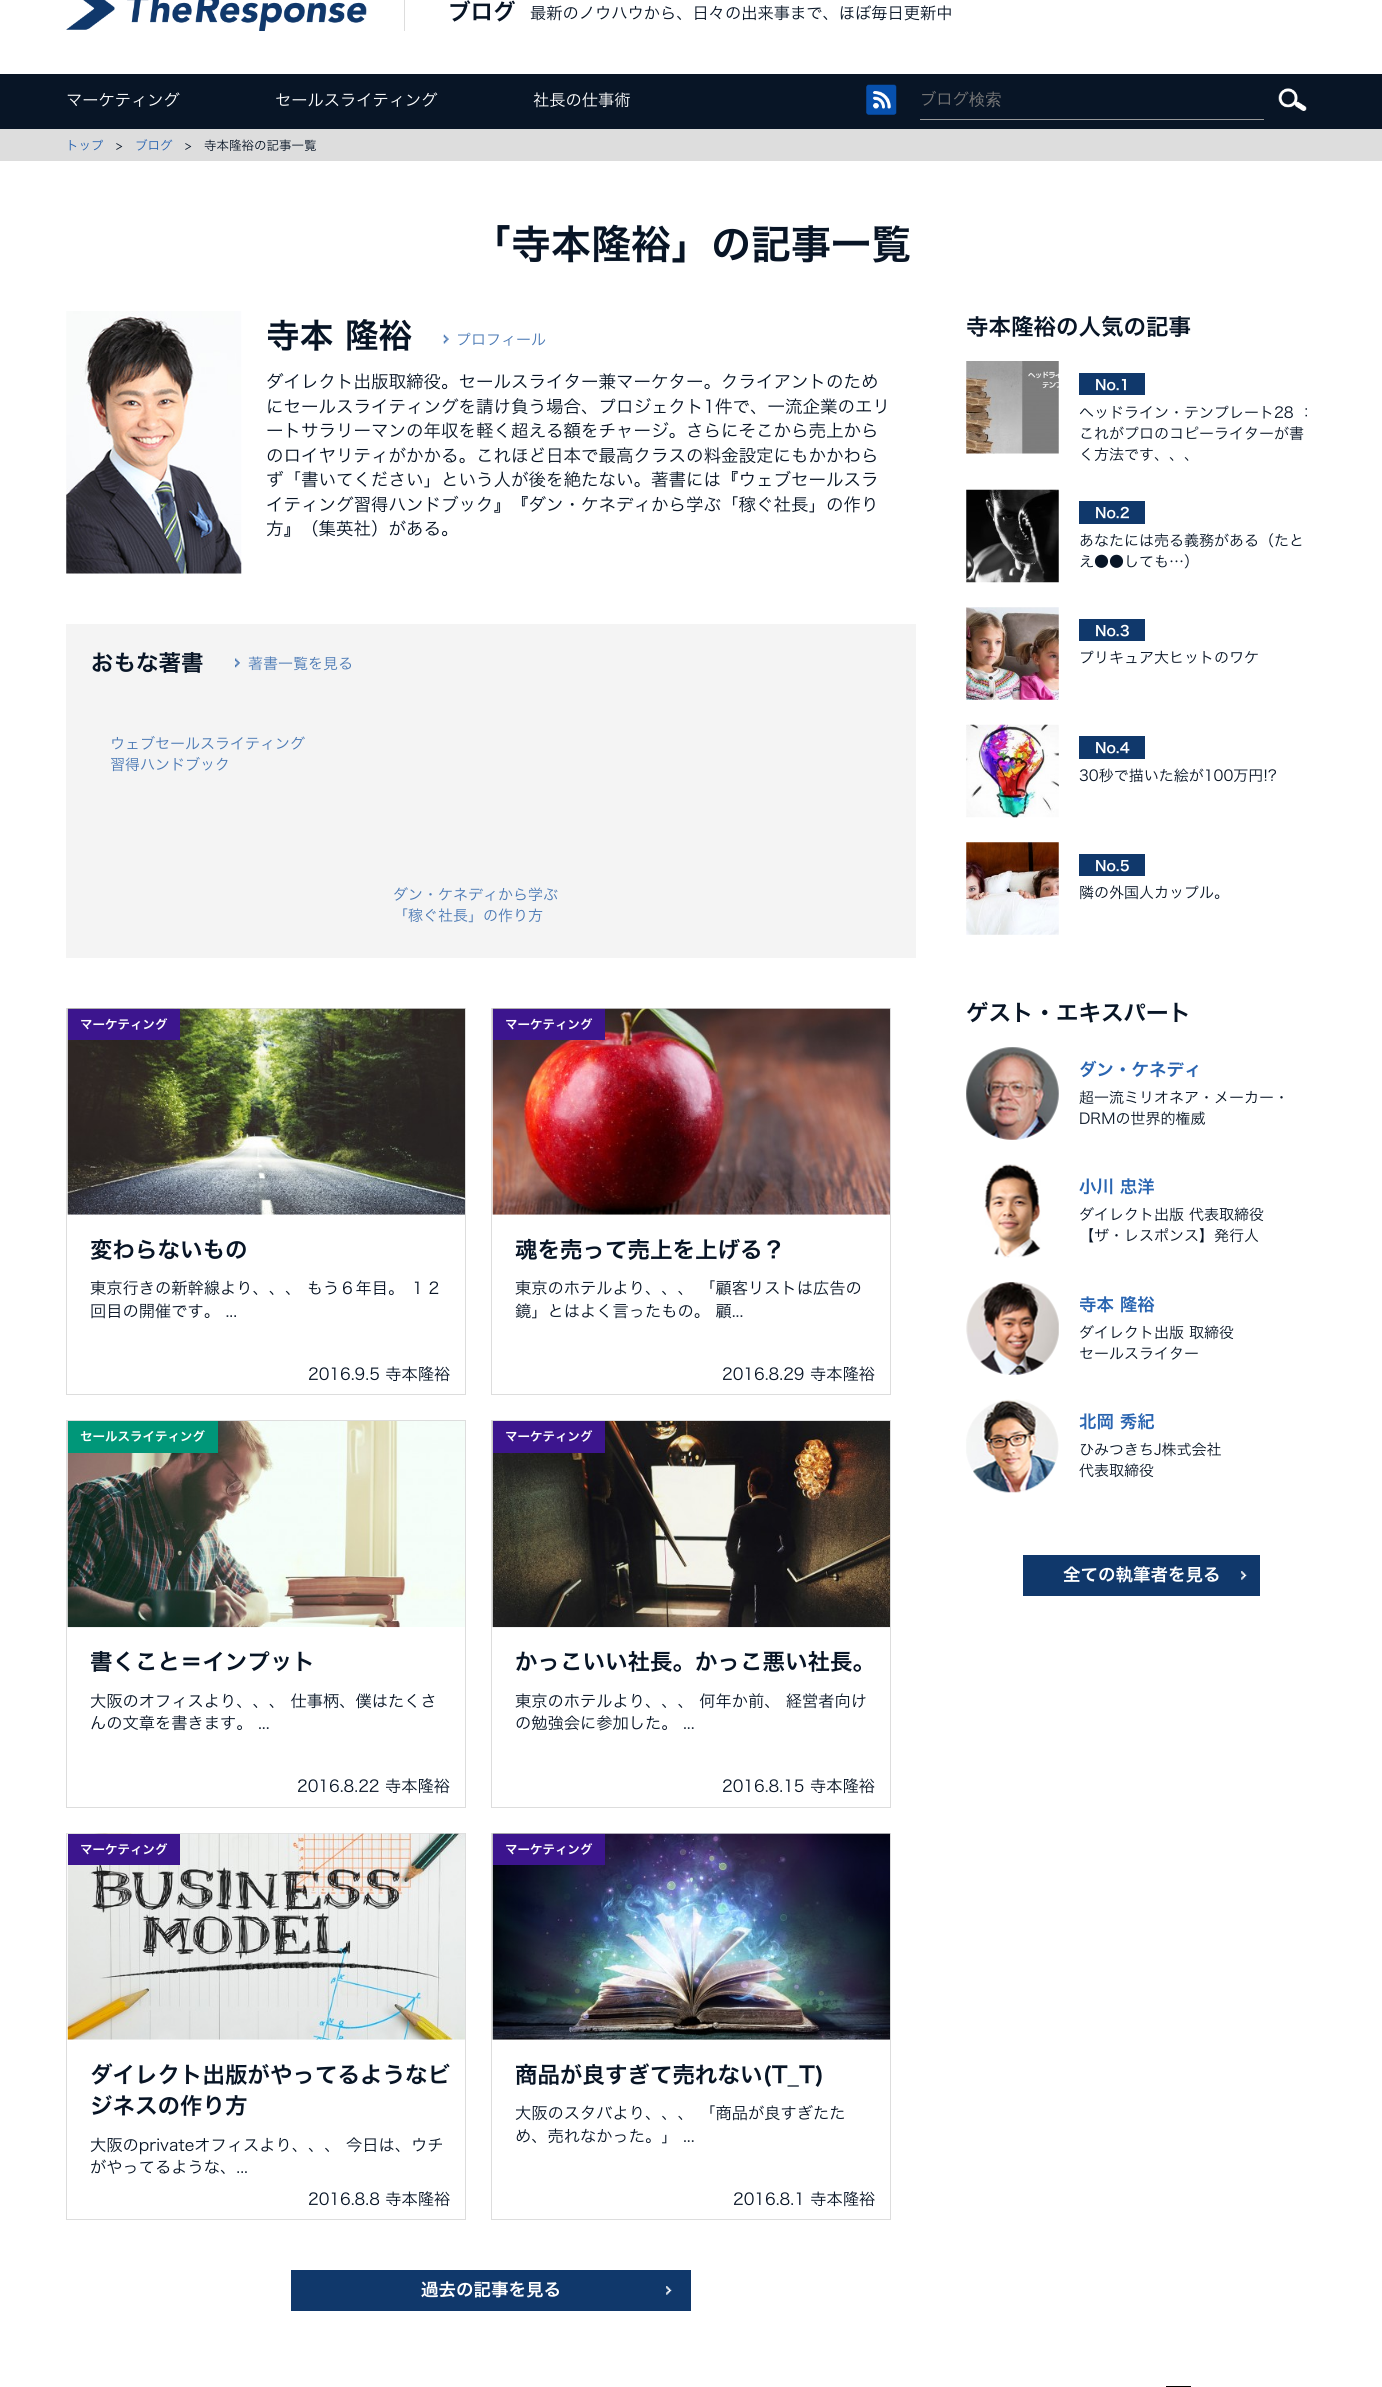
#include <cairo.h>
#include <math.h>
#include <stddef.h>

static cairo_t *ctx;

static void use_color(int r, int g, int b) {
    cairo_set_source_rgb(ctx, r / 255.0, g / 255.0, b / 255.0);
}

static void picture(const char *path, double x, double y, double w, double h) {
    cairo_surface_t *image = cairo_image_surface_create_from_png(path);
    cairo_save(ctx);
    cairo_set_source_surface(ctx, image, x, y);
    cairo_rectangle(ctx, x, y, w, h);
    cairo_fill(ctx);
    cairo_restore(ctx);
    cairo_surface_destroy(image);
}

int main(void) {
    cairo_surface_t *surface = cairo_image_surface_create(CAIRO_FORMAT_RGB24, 1382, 2387);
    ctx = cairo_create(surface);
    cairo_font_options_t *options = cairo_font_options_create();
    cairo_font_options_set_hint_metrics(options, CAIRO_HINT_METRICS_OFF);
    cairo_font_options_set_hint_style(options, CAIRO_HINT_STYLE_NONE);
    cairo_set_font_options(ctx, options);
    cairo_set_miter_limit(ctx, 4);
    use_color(255, 255, 255);
    cairo_paint(ctx);
    use_color(221, 221, 221);
    cairo_rectangle(ctx, 404, 0, 1, 31);
    cairo_fill(ctx);
    picture("img1.png", 66, 0, 301, 31);
    cairo_select_font_face(ctx, "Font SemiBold", CAIRO_FONT_SLANT_NORMAL, CAIRO_FONT_WEIGHT_NORMAL);
    cairo_set_font_size(ctx, 22.5);
    use_color(8, 21, 38);
    cairo_move_to(ctx, 448, 20);
    cairo_show_text(ctx, "ブログ");
    cairo_select_font_face(ctx, "Font Light", CAIRO_FONT_SLANT_NORMAL, CAIRO_FONT_WEIGHT_NORMAL);
    cairo_set_font_size(ctx, 16.25);
    cairo_move_to(ctx, 530, 19);
    cairo_show_text(ctx, "最新のノウハウから、日々の出来事まで、ほぼ毎日更新中");
    cairo_rectangle(ctx, 0, 74, 1382, 55);
    cairo_fill(ctx);
    use_color(255, 255, 255);
    cairo_move_to(ctx, 66, 106);
    cairo_show_text(ctx, "マーケティング");
    cairo_move_to(ctx, 275, 106);
    cairo_show_text(ctx, "セールスライティング");
    cairo_move_to(ctx, 533, 106);
    cairo_show_text(ctx, "社長の仕事術");
    picture("img2.png", 866, 84, 31, 31);
    use_color(153, 153, 153);
    cairo_rectangle(ctx, 920, 119, 344, 1);
    cairo_fill(ctx);
    use_color(117, 117, 117);
    cairo_move_to(ctx, 920, 105);
    cairo_show_text(ctx, "ブログ");
    cairo_select_font_face(ctx, "WenQuanYi Zen Hei Medium", CAIRO_FONT_SLANT_NORMAL, CAIRO_FONT_WEIGHT_NORMAL);
    cairo_move_to(ctx, 969, 105);
    cairo_show_text(ctx, "検索");
    picture("img3.png", 1278, 88, 29, 23);
    use_color(221, 221, 221);
    cairo_rectangle(ctx, 0, 129, 1382, 32);
    cairo_fill(ctx);
    cairo_select_font_face(ctx, "Font Light", CAIRO_FONT_SLANT_NORMAL, CAIRO_FONT_WEIGHT_NORMAL);
    cairo_set_font_size(ctx, 12.5);
    use_color(42, 101, 177);
    cairo_move_to(ctx, 66, 150);
    cairo_show_text(ctx, "トップ");
    use_color(8, 21, 38);
    cairo_move_to(ctx, 116, 150);
    cairo_show_text(ctx, ">");
    use_color(42, 101, 177);
    cairo_move_to(ctx, 135, 150);
    cairo_show_text(ctx, "ブログ");
    use_color(8, 21, 38);
    cairo_move_to(ctx, 185, 150);
    cairo_show_text(ctx, ">　寺本隆裕の記事一覧");
    cairo_select_font_face(ctx, "Font SemiBold", CAIRO_FONT_SLANT_NORMAL, CAIRO_FONT_WEIGHT_NORMAL);
    cairo_set_font_size(ctx, 40);
    cairo_move_to(ctx, 471, 259);
    cairo_show_text(ctx, "「寺本隆裕」の記事一覧");
    picture("img4.png", 66, 311, 176, 263);
    cairo_set_font_size(ctx, 33.75);
    cairo_move_to(ctx, 266, 348);
    cairo_show_text(ctx, "寺本 隆裕");
    picture("img5.png", 443, 334, 6, 10);
    cairo_select_font_face(ctx, "Font Light", CAIRO_FONT_SLANT_NORMAL, CAIRO_FONT_WEIGHT_NORMAL);
    cairo_set_font_size(ctx, 15);
    use_color(76, 122, 181);
    cairo_move_to(ctx, 456, 345);
    cairo_show_text(ctx, "プロフィール");
    cairo_set_font_size(ctx, 17.5);
    use_color(8, 21, 38);
    cairo_move_to(ctx, 266, 388);
    cairo_show_text(ctx, "ダイレクト出版取締役。セールスライター兼マーケター。クライアントのため");
    cairo_move_to(ctx, 266, 413);
    cairo_show_text(ctx, "にセールスライティングを請け負う場合、プロジェクト1件で、一流企業のエリ");
    cairo_move_to(ctx, 266, 437);
    cairo_show_text(ctx, "ートサラリーマンの年収を軽く超える額をチャージ。さらにそこから売上から");
    cairo_move_to(ctx, 266, 462);
    cairo_show_text(ctx, "のロイヤリティがかかる。これほど日本で最高クラスの料金設定にもかかわら");
    cairo_move_to(ctx, 266, 486);
    cairo_show_text(ctx, "ず「書いてください」という人が後を絶たない。著書には『ウェブセールスラ");
    cairo_move_to(ctx, 266, 511);
    cairo_show_text(ctx, "イティング習得ハンドブック』『ダン・ケネディから学ぶ「稼ぐ社長」の作り");
    cairo_move_to(ctx, 266, 535);
    cairo_show_text(ctx, "方』（集英社）がある。");
    use_color(244, 244, 244);
    cairo_rectangle(ctx, 66, 624, 850, 334);
    cairo_fill(ctx);
    cairo_select_font_face(ctx, "Font SemiBold", CAIRO_FONT_SLANT_NORMAL, CAIRO_FONT_WEIGHT_NORMAL);
    cairo_set_font_size(ctx, 22.5);
    use_color(8, 21, 38);
    cairo_move_to(ctx, 91, 671);
    cairo_show_text(ctx, "おもな著書");
    picture("img6.png", 235, 658, 5, 10);
    cairo_select_font_face(ctx, "Font Light", CAIRO_FONT_SLANT_NORMAL, CAIRO_FONT_WEIGHT_NORMAL);
    cairo_set_font_size(ctx, 15);
    use_color(76, 122, 181);
    cairo_move_to(ctx, 248, 669);
    cairo_show_text(ctx, "著書一覧を見る");
    cairo_move_to(ctx, 110, 749);
    cairo_show_text(ctx, "ウェブセールスライティング");
    cairo_move_to(ctx, 110, 770);
    cairo_show_text(ctx, "習得ハンドブック");
    cairo_move_to(ctx, 393, 900);
    cairo_show_text(ctx, "ダン・ケネディから学ぶ");
    cairo_move_to(ctx, 393, 921);
    cairo_show_text(ctx, "「稼ぐ社長」の作り方");
    cairo_rectangle(ctx, 66.5, 1008.5, 399, 386);
    use_color(221, 221, 221);
    cairo_set_line_width(ctx, 1);
    cairo_stroke(ctx);
    picture("img7.png", 67, 1008, 398, 207);
    use_color(60, 21, 142);
    cairo_rectangle(ctx, 68, 1009, 112, 31);
    cairo_fill(ctx);
    cairo_select_font_face(ctx, "Font SemiBold", CAIRO_FONT_SLANT_NORMAL, CAIRO_FONT_WEIGHT_NORMAL);
    cairo_set_font_size(ctx, 12.5);
    use_color(255, 255, 255);
    cairo_move_to(ctx, 80, 1029);
    cairo_show_text(ctx, "マーケティング");
    cairo_set_font_size(ctx, 22.5);
    use_color(8, 21, 38);
    cairo_move_to(ctx, 90, 1258);
    cairo_show_text(ctx, "変わらないもの");
    cairo_select_font_face(ctx, "Font Light", CAIRO_FONT_SLANT_NORMAL, CAIRO_FONT_WEIGHT_NORMAL);
    cairo_set_font_size(ctx, 16.25);
    cairo_move_to(ctx, 90, 1294);
    cairo_show_text(ctx, "東京行きの新幹線より、、、 もう６年目。 １２");
    cairo_move_to(ctx, 90, 1317);
    cairo_show_text(ctx, "回目の開催です。 ...");
    cairo_move_to(ctx, 308, 1380);
    cairo_show_text(ctx, "2016.9.5 寺本隆裕");
    cairo_rectangle(ctx, 491.5, 1008.5, 399, 386);
    use_color(221, 221, 221);
    cairo_stroke(ctx);
    picture("img8.png", 492, 1008, 398, 207);
    use_color(60, 21, 142);
    cairo_rectangle(ctx, 493, 1009, 112, 31);
    cairo_fill(ctx);
    cairo_select_font_face(ctx, "Font SemiBold", CAIRO_FONT_SLANT_NORMAL, CAIRO_FONT_WEIGHT_NORMAL);
    cairo_set_font_size(ctx, 12.5);
    use_color(255, 255, 255);
    cairo_move_to(ctx, 505, 1029);
    cairo_show_text(ctx, "マーケティング");
    cairo_set_font_size(ctx, 22.5);
    use_color(8, 21, 38);
    cairo_move_to(ctx, 515, 1258);
    cairo_show_text(ctx, "魂を売って売上を上げる？");
    cairo_select_font_face(ctx, "Font Light", CAIRO_FONT_SLANT_NORMAL, CAIRO_FONT_WEIGHT_NORMAL);
    cairo_set_font_size(ctx, 16.25);
    cairo_move_to(ctx, 515, 1294);
    cairo_show_text(ctx, "東京のホテルより、、、 「顧客リストは広告の");
    cairo_move_to(ctx, 515, 1317);
    cairo_show_text(ctx, "鏡」とはよく言ったもの。 顧...");
    cairo_move_to(ctx, 722, 1380);
    cairo_show_text(ctx, "2016.8.29 寺本隆裕");
    cairo_rectangle(ctx, 66.5, 1420.5, 399, 387);
    use_color(221, 221, 221);
    cairo_stroke(ctx);
    picture("img9.png", 67, 1421, 398, 207);
    use_color(0, 151, 121);
    cairo_rectangle(ctx, 68, 1421, 150, 32);
    cairo_fill(ctx);
    cairo_select_font_face(ctx, "Font SemiBold", CAIRO_FONT_SLANT_NORMAL, CAIRO_FONT_WEIGHT_NORMAL);
    cairo_set_font_size(ctx, 12.5);
    use_color(255, 255, 255);
    cairo_move_to(ctx, 80, 1441);
    cairo_show_text(ctx, "セールスライティング");
    cairo_set_font_size(ctx, 22.5);
    use_color(8, 21, 38);
    cairo_move_to(ctx, 90, 1670);
    cairo_show_text(ctx, "書くこと＝インプット");
    cairo_select_font_face(ctx, "Font Light", CAIRO_FONT_SLANT_NORMAL, CAIRO_FONT_WEIGHT_NORMAL);
    cairo_set_font_size(ctx, 16.25);
    cairo_move_to(ctx, 90, 1707);
    cairo_show_text(ctx, "大阪のオフィスより、、、 仕事柄、僕はたくさ");
    cairo_move_to(ctx, 90, 1729);
    cairo_show_text(ctx, "んの文章を書きます。 ...");
    cairo_move_to(ctx, 297, 1792);
    cairo_show_text(ctx, "2016.8.22 寺本隆裕");
    cairo_rectangle(ctx, 491.5, 1420.5, 399, 387);
    use_color(221, 221, 221);
    cairo_stroke(ctx);
    picture("img10.png", 492, 1421, 398, 207);
    use_color(60, 21, 142);
    cairo_rectangle(ctx, 493, 1421, 112, 32);
    cairo_fill(ctx);
    cairo_select_font_face(ctx, "Font SemiBold", CAIRO_FONT_SLANT_NORMAL, CAIRO_FONT_WEIGHT_NORMAL);
    cairo_set_font_size(ctx, 12.5);
    use_color(255, 255, 255);
    cairo_move_to(ctx, 505, 1441);
    cairo_show_text(ctx, "マーケティング");
    cairo_set_font_size(ctx, 22.5);
    use_color(8, 21, 38);
    cairo_move_to(ctx, 515, 1670);
    cairo_show_text(ctx, "かっこいい社長。かっこ悪い社長。");
    cairo_select_font_face(ctx, "Font Light", CAIRO_FONT_SLANT_NORMAL, CAIRO_FONT_WEIGHT_NORMAL);
    cairo_set_font_size(ctx, 16.25);
    cairo_move_to(ctx, 515, 1707);
    cairo_show_text(ctx, "東京のホテルより、、、 何年か前、 経営者向け");
    cairo_move_to(ctx, 515, 1729);
    cairo_show_text(ctx, "の勉強会に参加した。 ...");
    cairo_move_to(ctx, 722, 1792);
    cairo_show_text(ctx, "2016.8.15 寺本隆裕");
    cairo_rectangle(ctx, 66.5, 1833.5, 399, 386);
    use_color(221, 221, 221);
    cairo_stroke(ctx);
    picture("img11.png", 67, 1833, 398, 207);
    use_color(60, 21, 142);
    cairo_rectangle(ctx, 68, 1834, 112, 31);
    cairo_fill(ctx);
    cairo_select_font_face(ctx, "Font SemiBold", CAIRO_FONT_SLANT_NORMAL, CAIRO_FONT_WEIGHT_NORMAL);
    cairo_set_font_size(ctx, 12.5);
    use_color(255, 255, 255);
    cairo_move_to(ctx, 80, 1854);
    cairo_show_text(ctx, "マーケティング");
    cairo_set_font_size(ctx, 22.5);
    use_color(8, 21, 38);
    cairo_move_to(ctx, 90, 2083);
    cairo_show_text(ctx, "ダイレクト出版がやってるようなビ");
    cairo_move_to(ctx, 90, 2114);
    cairo_show_text(ctx, "ジネスの作り方");
    cairo_select_font_face(ctx, "Font Light", CAIRO_FONT_SLANT_NORMAL, CAIRO_FONT_WEIGHT_NORMAL);
    cairo_set_font_size(ctx, 16.25);
    cairo_move_to(ctx, 90, 2151);
    cairo_show_text(ctx, "大阪のprivateオフィスより、、、 今日は、ウチ");
    cairo_move_to(ctx, 90, 2173);
    cairo_show_text(ctx, "がやってるような、...");
    cairo_move_to(ctx, 308, 2205);
    cairo_show_text(ctx, "2016.8.8 寺本隆裕");
    cairo_rectangle(ctx, 491.5, 1833.5, 399, 386);
    use_color(221, 221, 221);
    cairo_stroke(ctx);
    picture("img12.png", 492, 1833, 398, 207);
    use_color(60, 21, 142);
    cairo_rectangle(ctx, 493, 1834, 112, 31);
    cairo_fill(ctx);
    cairo_select_font_face(ctx, "Font SemiBold", CAIRO_FONT_SLANT_NORMAL, CAIRO_FONT_WEIGHT_NORMAL);
    cairo_set_font_size(ctx, 12.5);
    use_color(255, 255, 255);
    cairo_move_to(ctx, 505, 1854);
    cairo_show_text(ctx, "マーケティング");
    cairo_set_font_size(ctx, 22.5);
    use_color(8, 21, 38);
    cairo_move_to(ctx, 515, 2083);
    cairo_show_text(ctx, "商品が良すぎて売れない(T_T)");
    cairo_select_font_face(ctx, "Font Light", CAIRO_FONT_SLANT_NORMAL, CAIRO_FONT_WEIGHT_NORMAL);
    cairo_set_font_size(ctx, 16.25);
    cairo_move_to(ctx, 515, 2119);
    cairo_show_text(ctx, "大阪のスタバより、、、 「商品が良すぎたた");
    cairo_move_to(ctx, 515, 2142);
    cairo_show_text(ctx, "め、売れなかった。」 ...");
    cairo_move_to(ctx, 733, 2205);
    cairo_show_text(ctx, "2016.8.1 寺本隆裕");
    use_color(16, 56, 107);
    cairo_rectangle(ctx, 291, 2270, 400, 41);
    cairo_fill(ctx);
    picture("img13.png", 666, 2286, 6, 9);
    cairo_select_font_face(ctx, "Font SemiBold", CAIRO_FONT_SLANT_NORMAL, CAIRO_FONT_WEIGHT_NORMAL);
    cairo_set_font_size(ctx, 17.5);
    use_color(255, 255, 255);
    cairo_move_to(ctx, 421, 2296);
    cairo_show_text(ctx, "過去の記事を見る");
    cairo_set_font_size(ctx, 22.5);
    use_color(8, 21, 38);
    cairo_move_to(ctx, 966, 335);
    cairo_show_text(ctx, "寺本隆裕の人気の記事");
    picture("img14.png", 966, 361, 93, 93);
    use_color(16, 56, 107);
    cairo_rectangle(ctx, 1079, 373, 66, 22);
    cairo_fill(ctx);
    cairo_set_font_size(ctx, 14);
    use_color(255, 255, 255);
    cairo_move_to(ctx, 1095, 390);
    cairo_show_text(ctx, "No.1");
    cairo_select_font_face(ctx, "Font Light", CAIRO_FONT_SLANT_NORMAL, CAIRO_FONT_WEIGHT_NORMAL);
    cairo_set_font_size(ctx, 15);
    use_color(8, 21, 38);
    cairo_move_to(ctx, 1079, 418);
    cairo_show_text(ctx, "ヘッドライン・テンプレート28 ：");
    cairo_move_to(ctx, 1079, 439);
    cairo_show_text(ctx, "これがプロのコピーライターが書");
    cairo_move_to(ctx, 1079, 460);
    cairo_show_text(ctx, "く方法です、、、");
    picture("img15.png", 966, 489, 93, 94);
    use_color(16, 56, 107);
    cairo_rectangle(ctx, 1079, 501, 66, 23);
    cairo_fill(ctx);
    cairo_select_font_face(ctx, "Font SemiBold", CAIRO_FONT_SLANT_NORMAL, CAIRO_FONT_WEIGHT_NORMAL);
    cairo_set_font_size(ctx, 14);
    use_color(255, 255, 255);
    cairo_move_to(ctx, 1095, 518);
    cairo_show_text(ctx, "No.2");
    cairo_select_font_face(ctx, "Font Light", CAIRO_FONT_SLANT_NORMAL, CAIRO_FONT_WEIGHT_NORMAL);
    cairo_set_font_size(ctx, 15);
    use_color(8, 21, 38);
    cairo_move_to(ctx, 1079, 546);
    cairo_show_text(ctx, "あなたには売る義務がある（たと");
    cairo_move_to(ctx, 1079, 567);
    cairo_show_text(ctx, "え●●しても…）");
    picture("img16.png", 966, 607, 93, 93);
    use_color(16, 56, 107);
    cairo_rectangle(ctx, 1079, 619, 66, 22);
    cairo_fill(ctx);
    cairo_select_font_face(ctx, "Font SemiBold", CAIRO_FONT_SLANT_NORMAL, CAIRO_FONT_WEIGHT_NORMAL);
    cairo_set_font_size(ctx, 14);
    use_color(255, 255, 255);
    cairo_move_to(ctx, 1095, 636);
    cairo_show_text(ctx, "No.3");
    cairo_select_font_face(ctx, "Font Light", CAIRO_FONT_SLANT_NORMAL, CAIRO_FONT_WEIGHT_NORMAL);
    cairo_set_font_size(ctx, 15);
    use_color(8, 21, 38);
    cairo_move_to(ctx, 1079, 663);
    cairo_show_text(ctx, "プリキュア大ヒットのワケ");
    picture("img17.png", 966, 724, 93, 94);
    use_color(16, 56, 107);
    cairo_rectangle(ctx, 1079, 736, 66, 23);
    cairo_fill(ctx);
    cairo_select_font_face(ctx, "Font SemiBold", CAIRO_FONT_SLANT_NORMAL, CAIRO_FONT_WEIGHT_NORMAL);
    cairo_set_font_size(ctx, 14);
    use_color(255, 255, 255);
    cairo_move_to(ctx, 1095, 753);
    cairo_show_text(ctx, "No.4");
    cairo_select_font_face(ctx, "Font Light", CAIRO_FONT_SLANT_NORMAL, CAIRO_FONT_WEIGHT_NORMAL);
    cairo_set_font_size(ctx, 15);
    use_color(8, 21, 38);
    cairo_move_to(ctx, 1079, 781);
    cairo_show_text(ctx, "30秒で描いた絵が100万円!?");
    picture("img18.png", 966, 842, 93, 93);
    use_color(16, 56, 107);
    cairo_rectangle(ctx, 1079, 854, 66, 22);
    cairo_fill(ctx);
    cairo_select_font_face(ctx, "Font SemiBold", CAIRO_FONT_SLANT_NORMAL, CAIRO_FONT_WEIGHT_NORMAL);
    cairo_set_font_size(ctx, 14);
    use_color(255, 255, 255);
    cairo_move_to(ctx, 1095, 871);
    cairo_show_text(ctx, "No.5");
    cairo_select_font_face(ctx, "Font Light", CAIRO_FONT_SLANT_NORMAL, CAIRO_FONT_WEIGHT_NORMAL);
    cairo_set_font_size(ctx, 15);
    use_color(8, 21, 38);
    cairo_move_to(ctx, 1079, 898);
    cairo_show_text(ctx, "隣の外国人カップル。");
    cairo_select_font_face(ctx, "Font SemiBold", CAIRO_FONT_SLANT_NORMAL, CAIRO_FONT_WEIGHT_NORMAL);
    cairo_set_font_size(ctx, 22.5);
    cairo_move_to(ctx, 966, 1021);
    cairo_show_text(ctx, "ゲスト・エキスパート");
    picture("img19.png", 966, 1047, 93, 93);
    cairo_set_font_size(ctx, 17.5);
    use_color(42, 101, 177);
    cairo_move_to(ctx, 1079, 1076);
    cairo_show_text(ctx, "ダン・ケネディ");
    cairo_select_font_face(ctx, "Font Light", CAIRO_FONT_SLANT_NORMAL, CAIRO_FONT_WEIGHT_NORMAL);
    cairo_set_font_size(ctx, 15);
    use_color(8, 21, 38);
    cairo_move_to(ctx, 1079, 1103);
    cairo_show_text(ctx, "超一流ミリオネア・メーカー・");
    cairo_move_to(ctx, 1079, 1124);
    cairo_show_text(ctx, "DRMの世界的権威");
    picture("img20.png", 984, 1164, 57, 94);
    cairo_select_font_face(ctx, "Font SemiBold", CAIRO_FONT_SLANT_NORMAL, CAIRO_FONT_WEIGHT_NORMAL);
    cairo_set_font_size(ctx, 17.5);
    use_color(42, 101, 177);
    cairo_move_to(ctx, 1079, 1193);
    cairo_show_text(ctx, "小川 忠洋");
    cairo_select_font_face(ctx, "Font Light", CAIRO_FONT_SLANT_NORMAL, CAIRO_FONT_WEIGHT_NORMAL);
    cairo_set_font_size(ctx, 15);
    use_color(8, 21, 38);
    cairo_move_to(ctx, 1079, 1220);
    cairo_show_text(ctx, "ダイレクト出版 代表取締役");
    cairo_move_to(ctx, 1079, 1241);
    cairo_show_text(ctx, "【ザ・レスポンス】発行人");
    picture("img21.png", 966, 1282, 93, 93);
    cairo_select_font_face(ctx, "Font SemiBold", CAIRO_FONT_SLANT_NORMAL, CAIRO_FONT_WEIGHT_NORMAL);
    cairo_set_font_size(ctx, 17.5);
    use_color(42, 101, 177);
    cairo_move_to(ctx, 1079, 1311);
    cairo_show_text(ctx, "寺本 隆裕");
    cairo_select_font_face(ctx, "Font Light", CAIRO_FONT_SLANT_NORMAL, CAIRO_FONT_WEIGHT_NORMAL);
    cairo_set_font_size(ctx, 15);
    use_color(8, 21, 38);
    cairo_move_to(ctx, 1079, 1338);
    cairo_show_text(ctx, "ダイレクト出版 取締役");
    cairo_move_to(ctx, 1079, 1359);
    cairo_show_text(ctx, "セールスライター");
    picture("img22.png", 966, 1399, 93, 94);
    cairo_select_font_face(ctx, "Font SemiBold", CAIRO_FONT_SLANT_NORMAL, CAIRO_FONT_WEIGHT_NORMAL);
    cairo_set_font_size(ctx, 17.5);
    use_color(42, 101, 177);
    cairo_move_to(ctx, 1079, 1428);
    cairo_show_text(ctx, "北岡 秀紀");
    cairo_select_font_face(ctx, "Font Light", CAIRO_FONT_SLANT_NORMAL, CAIRO_FONT_WEIGHT_NORMAL);
    cairo_set_font_size(ctx, 15);
    use_color(8, 21, 38);
    cairo_move_to(ctx, 1079, 1455);
    cairo_show_text(ctx, "ひみつきちJ株式会社");
    cairo_move_to(ctx, 1079, 1476);
    cairo_show_text(ctx, "代表取締役");
    use_color(16, 56, 107);
    cairo_rectangle(ctx, 1023, 1555, 237, 41);
    cairo_fill(ctx);
    picture("img13.png", 1241, 1571, 6, 9);
    cairo_select_font_face(ctx, "Font SemiBold", CAIRO_FONT_SLANT_NORMAL, CAIRO_FONT_WEIGHT_NORMAL);
    cairo_set_font_size(ctx, 17.5);
    use_color(255, 255, 255);
    cairo_move_to(ctx, 1063, 1581);
    cairo_show_text(ctx, "全ての執筆者を見る");
    use_color(0, 0, 0);
    cairo_rectangle(ctx, 1166, 2386, 25, 1);
    cairo_fill(ctx);
    cairo_surface_write_to_png(surface, "result.png");
    cairo_font_options_destroy(options);
    cairo_destroy(ctx);
    cairo_surface_destroy(surface);
    return 0;
}
